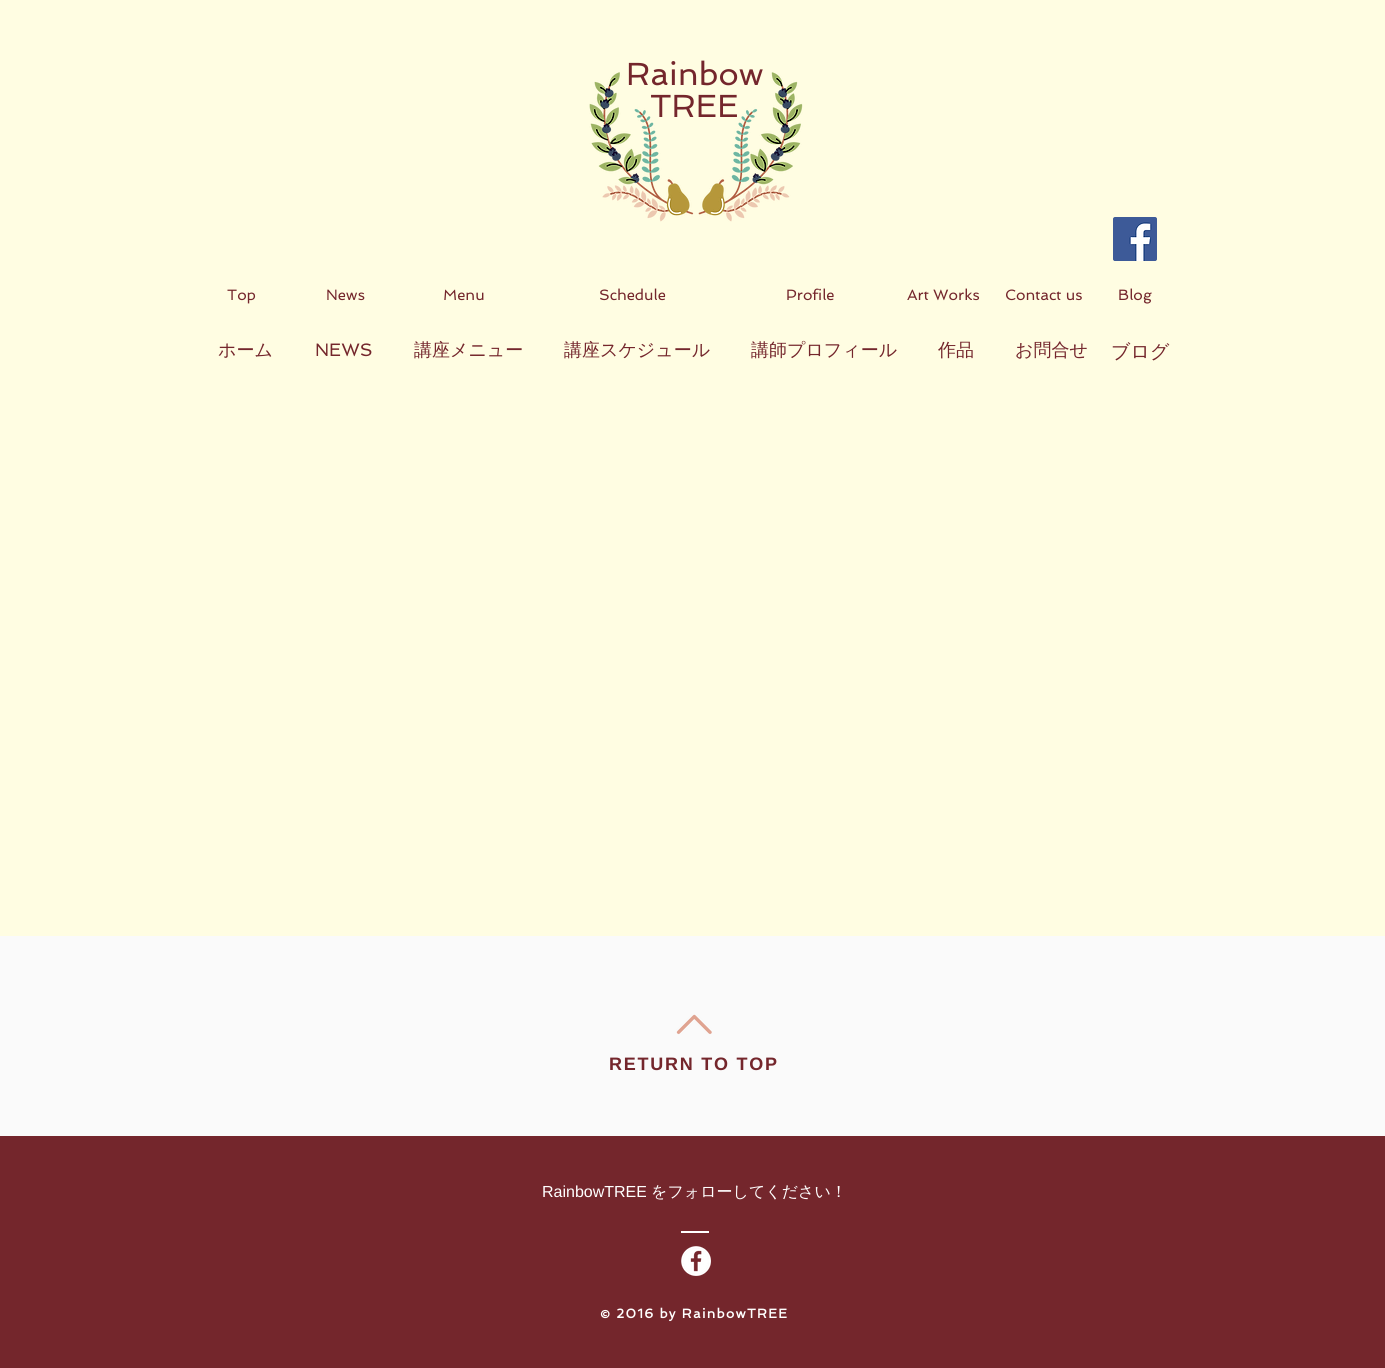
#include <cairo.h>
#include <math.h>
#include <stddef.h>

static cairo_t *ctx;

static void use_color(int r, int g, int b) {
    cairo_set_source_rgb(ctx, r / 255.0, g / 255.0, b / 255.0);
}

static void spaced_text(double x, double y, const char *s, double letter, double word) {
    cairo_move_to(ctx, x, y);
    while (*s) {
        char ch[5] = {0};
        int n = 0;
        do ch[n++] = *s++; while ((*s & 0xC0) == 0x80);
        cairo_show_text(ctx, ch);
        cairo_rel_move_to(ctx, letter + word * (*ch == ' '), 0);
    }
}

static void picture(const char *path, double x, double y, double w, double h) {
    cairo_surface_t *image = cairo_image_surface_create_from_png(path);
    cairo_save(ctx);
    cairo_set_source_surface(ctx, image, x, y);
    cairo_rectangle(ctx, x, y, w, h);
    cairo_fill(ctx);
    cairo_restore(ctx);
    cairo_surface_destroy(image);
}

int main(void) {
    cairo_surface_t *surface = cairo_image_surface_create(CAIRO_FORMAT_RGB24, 1385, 1368);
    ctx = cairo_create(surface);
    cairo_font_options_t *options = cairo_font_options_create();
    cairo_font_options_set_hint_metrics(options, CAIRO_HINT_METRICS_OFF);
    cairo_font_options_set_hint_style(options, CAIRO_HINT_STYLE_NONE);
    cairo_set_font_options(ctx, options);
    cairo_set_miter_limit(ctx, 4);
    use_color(255, 253, 226);
    cairo_paint(ctx);
    picture("img1.png", 589, 72, 214, 150);
    cairo_select_font_face(ctx, "Spinnaker", CAIRO_FONT_SLANT_NORMAL, CAIRO_FONT_WEIGHT_NORMAL);
    cairo_set_font_size(ctx, 32);
    use_color(116, 38, 44);
    cairo_move_to(ctx, 626, 85);
    cairo_show_text(ctx, "Rainbow");
    cairo_move_to(ctx, 650, 117);
    cairo_show_text(ctx, "TREE");
    picture("img2.png", 1113, 217, 44, 44);
    cairo_set_font_size(ctx, 15);
    cairo_move_to(ctx, 227, 300);
    cairo_show_text(ctx, "Top");
    cairo_move_to(ctx, 326, 300);
    cairo_show_text(ctx, "News");
    cairo_move_to(ctx, 443, 300);
    cairo_show_text(ctx, "Menu");
    cairo_move_to(ctx, 599, 300);
    cairo_show_text(ctx, "Schedule");
    cairo_move_to(ctx, 786, 300);
    cairo_show_text(ctx, "Profile");
    cairo_move_to(ctx, 907, 300);
    cairo_show_text(ctx, "Art Works");
    cairo_move_to(ctx, 1005, 300);
    cairo_show_text(ctx, "Contact us");
    cairo_move_to(ctx, 1118, 300);
    cairo_show_text(ctx, "Blog");
    cairo_select_font_face(ctx, "WenQuanYi Zen Hei Medium", CAIRO_FONT_SLANT_NORMAL, CAIRO_FONT_WEIGHT_NORMAL);
    cairo_set_font_size(ctx, 18);
    cairo_move_to(ctx, 218, 356);
    cairo_show_text(ctx, "ホーム");
    cairo_select_font_face(ctx, "Spinnaker", CAIRO_FONT_SLANT_NORMAL, CAIRO_FONT_WEIGHT_NORMAL);
    cairo_move_to(ctx, 315, 356);
    cairo_show_text(ctx, "NEWS");
    cairo_select_font_face(ctx, "WenQuanYi Zen Hei Medium", CAIRO_FONT_SLANT_NORMAL, CAIRO_FONT_WEIGHT_NORMAL);
    cairo_move_to(ctx, 414, 356);
    cairo_show_text(ctx, "講座メニュー");
    cairo_move_to(ctx, 564, 356);
    cairo_show_text(ctx, "講座スケジュール");
    cairo_move_to(ctx, 751, 356);
    cairo_show_text(ctx, "講師プロフィール");
    cairo_move_to(ctx, 938, 356);
    cairo_show_text(ctx, "作品");
    cairo_move_to(ctx, 1015, 356);
    cairo_show_text(ctx, "お問合せ");
    cairo_set_font_size(ctx, 19);
    cairo_move_to(ctx, 1111, 358);
    cairo_show_text(ctx, "ブログ");
    use_color(250, 250, 250);
    cairo_rectangle(ctx, 0, 936, 1385, 200);
    cairo_fill(ctx);
    picture("img3.png", 676, 1014, 36, 21);
    cairo_select_font_face(ctx, "Liberation Sans", CAIRO_FONT_SLANT_NORMAL, CAIRO_FONT_WEIGHT_BOLD);
    cairo_set_font_size(ctx, 18);
    use_color(116, 38, 44);
    spaced_text(609, 1070, "RETURN TO TOP", 1.75, 0);
    cairo_rectangle(ctx, 0, 1136, 1385, 232);
    cairo_fill(ctx);
    cairo_select_font_face(ctx, "Liberation Sans", CAIRO_FONT_SLANT_NORMAL, CAIRO_FONT_WEIGHT_NORMAL);
    cairo_set_font_size(ctx, 16);
    use_color(255, 255, 255);
    cairo_move_to(ctx, 542, 1197);
    cairo_show_text(ctx, "RainbowTREE");
    cairo_select_font_face(ctx, "WenQuanYi Zen Hei Medium", CAIRO_FONT_SLANT_NORMAL, CAIRO_FONT_WEIGHT_NORMAL);
    cairo_move_to(ctx, 651, 1197);
    cairo_show_text(ctx, "をフォローしてください！");
    cairo_rectangle(ctx, 681, 1231, 28, 2);
    cairo_fill(ctx);
    picture("img4.png", 681, 1246, 30, 30);
    cairo_select_font_face(ctx, "Spinnaker", CAIRO_FONT_SLANT_NORMAL, CAIRO_FONT_WEIGHT_BOLD);
    cairo_set_font_size(ctx, 13);
    spaced_text(600, 1318, "© 2016 by RainbowTREE", 1.3, 0);
    cairo_surface_write_to_png(surface, "result.png");
    cairo_font_options_destroy(options);
    cairo_destroy(ctx);
    cairo_surface_destroy(surface);
    return 0;
}
